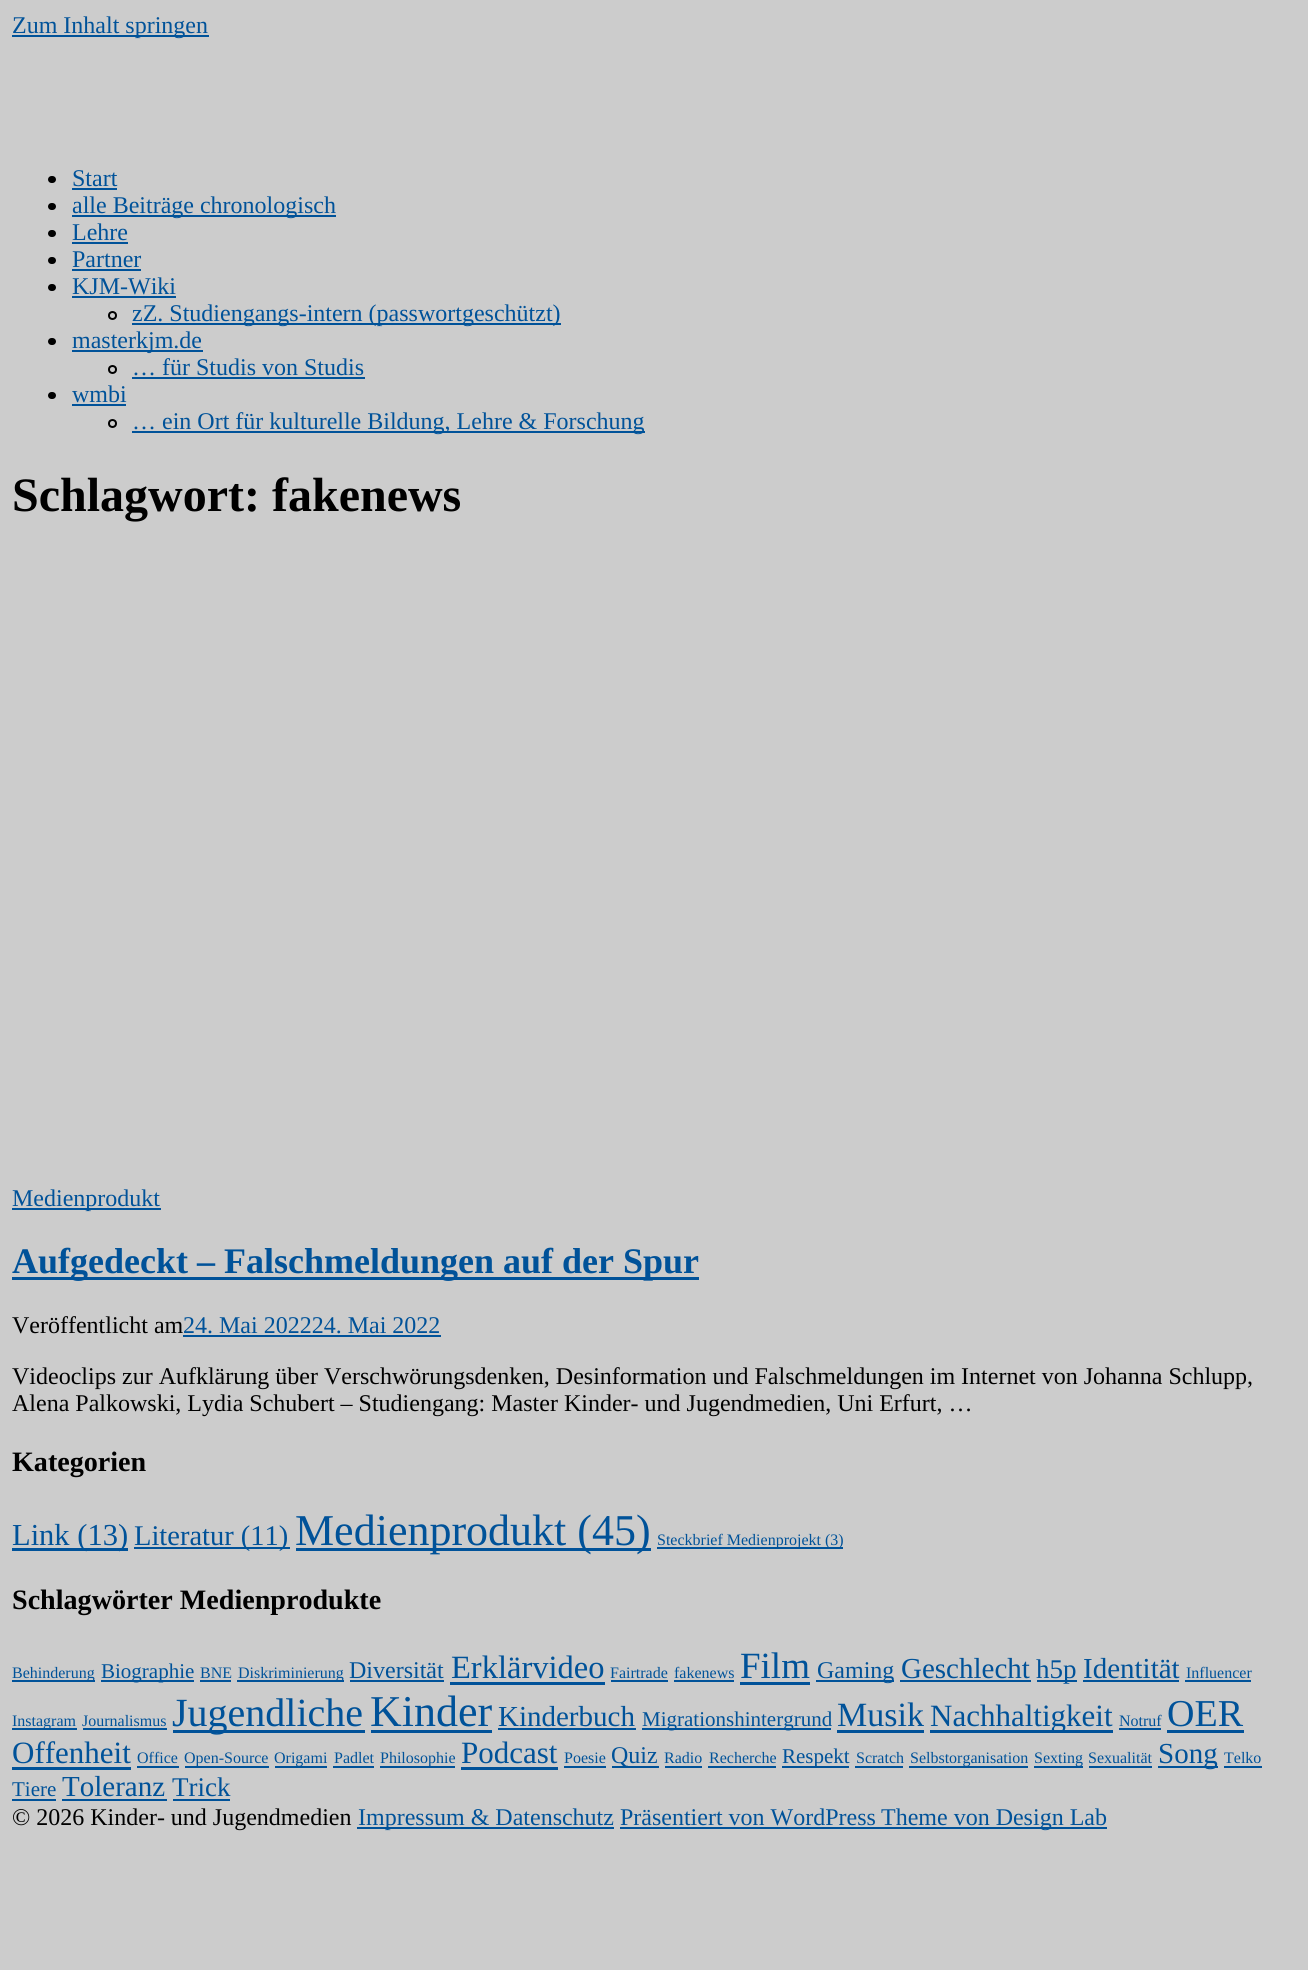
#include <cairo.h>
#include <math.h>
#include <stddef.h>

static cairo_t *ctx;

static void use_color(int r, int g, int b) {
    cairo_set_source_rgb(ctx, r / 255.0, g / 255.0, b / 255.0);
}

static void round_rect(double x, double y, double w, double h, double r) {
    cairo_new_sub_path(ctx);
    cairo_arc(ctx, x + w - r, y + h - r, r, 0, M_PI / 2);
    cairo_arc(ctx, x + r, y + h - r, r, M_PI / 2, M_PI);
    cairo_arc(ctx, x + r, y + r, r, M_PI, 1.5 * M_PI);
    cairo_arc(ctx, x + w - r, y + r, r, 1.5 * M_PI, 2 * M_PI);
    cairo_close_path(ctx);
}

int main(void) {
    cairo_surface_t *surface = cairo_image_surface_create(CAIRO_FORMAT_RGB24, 1308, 1970);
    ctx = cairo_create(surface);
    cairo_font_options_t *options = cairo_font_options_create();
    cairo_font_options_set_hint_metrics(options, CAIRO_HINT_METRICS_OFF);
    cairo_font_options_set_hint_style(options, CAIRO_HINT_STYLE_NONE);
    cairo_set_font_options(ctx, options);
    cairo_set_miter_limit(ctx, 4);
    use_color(204, 204, 204);
    cairo_paint(ctx);
    use_color(0, 82, 153);
    cairo_rectangle(ctx, 12, 35, 197, 2);
    cairo_fill(ctx);
    cairo_select_font_face(ctx, "Liberation Serif", CAIRO_FONT_SLANT_NORMAL, CAIRO_FONT_WEIGHT_NORMAL);
    cairo_set_font_size(ctx, 24);
    cairo_move_to(ctx, 12, 33);
    cairo_show_text(ctx, "Zum Inhalt springen");
    use_color(0, 0, 0);
    round_rect(48, 176, 8, 7, 3.5);
    cairo_fill(ctx);
    use_color(0, 82, 153);
    cairo_move_to(ctx, 72, 186);
    cairo_show_text(ctx, "Start");
    cairo_rectangle(ctx, 72, 188, 45, 2);
    cairo_fill(ctx);
    use_color(0, 0, 0);
    round_rect(48, 203, 8, 7, 3.5);
    cairo_fill(ctx);
    use_color(0, 82, 153);
    cairo_rectangle(ctx, 72, 215, 264, 2);
    cairo_fill(ctx);
    cairo_move_to(ctx, 72, 213);
    cairo_show_text(ctx, "alle Beiträge chronologisch");
    use_color(0, 0, 0);
    round_rect(48, 230, 8, 7, 3.5);
    cairo_fill(ctx);
    use_color(0, 82, 153);
    cairo_move_to(ctx, 72, 240);
    cairo_show_text(ctx, "Lehre");
    cairo_rectangle(ctx, 72, 242, 56, 2);
    cairo_fill(ctx);
    use_color(0, 0, 0);
    round_rect(48, 257, 8, 7, 3.5);
    cairo_fill(ctx);
    use_color(0, 82, 153);
    cairo_move_to(ctx, 72, 267);
    cairo_show_text(ctx, "Partner");
    cairo_rectangle(ctx, 72, 269, 69, 2);
    cairo_fill(ctx);
    use_color(0, 0, 0);
    round_rect(48, 284, 8, 7, 3.5);
    cairo_fill(ctx);
    use_color(0, 82, 153);
    cairo_move_to(ctx, 72, 294);
    cairo_show_text(ctx, "KJM-Wiki");
    cairo_rectangle(ctx, 72, 296, 104, 2);
    cairo_fill(ctx);
    cairo_arc(ctx, 112.5, 315.5, 3.5, 0, 2 * M_PI);
    use_color(0, 0, 0);
    cairo_stroke(ctx);
    use_color(0, 82, 153);
    cairo_rectangle(ctx, 132, 323, 429, 2);
    cairo_fill(ctx);
    cairo_move_to(ctx, 132, 321);
    cairo_show_text(ctx, "zZ. Studiengangs-intern (passwortgeschützt)");
    use_color(0, 0, 0);
    round_rect(48, 338, 8, 7, 3.5);
    cairo_fill(ctx);
    use_color(0, 82, 153);
    cairo_rectangle(ctx, 72, 350, 131, 2);
    cairo_fill(ctx);
    cairo_move_to(ctx, 72, 348);
    cairo_show_text(ctx, "masterkjm.de");
    cairo_new_path(ctx);
    cairo_arc(ctx, 112.5, 369.5, 3.5, 0, 2 * M_PI);
    use_color(0, 0, 0);
    cairo_stroke(ctx);
    use_color(0, 82, 153);
    cairo_move_to(ctx, 132, 375);
    cairo_show_text(ctx, "… für Studis von Studis");
    cairo_rectangle(ctx, 132, 377, 233, 2);
    cairo_fill(ctx);
    use_color(0, 0, 0);
    round_rect(48, 392, 8, 7, 3.5);
    cairo_fill(ctx);
    use_color(0, 82, 153);
    cairo_move_to(ctx, 72, 402);
    cairo_show_text(ctx, "wmbi");
    cairo_rectangle(ctx, 72, 404, 54, 2);
    cairo_fill(ctx);
    cairo_arc(ctx, 112.5, 423.5, 3.5, 0, 2 * M_PI);
    use_color(0, 0, 0);
    cairo_stroke(ctx);
    use_color(0, 82, 153);
    cairo_rectangle(ctx, 132, 431, 513, 2);
    cairo_fill(ctx);
    cairo_move_to(ctx, 132, 429);
    cairo_show_text(ctx, "… ein Ort für kulturelle Bildung, Lehre & Forschung");
    cairo_select_font_face(ctx, "Liberation Serif", CAIRO_FONT_SLANT_NORMAL, CAIRO_FONT_WEIGHT_BOLD);
    cairo_set_font_size(ctx, 48);
    use_color(0, 0, 0);
    cairo_move_to(ctx, 12, 511);
    cairo_show_text(ctx, "Schlagwort: fakenews");
    use_color(0, 82, 153);
    cairo_rectangle(ctx, 12, 1208, 149, 2);
    cairo_fill(ctx);
    cairo_select_font_face(ctx, "Liberation Serif", CAIRO_FONT_SLANT_NORMAL, CAIRO_FONT_WEIGHT_NORMAL);
    cairo_set_font_size(ctx, 24);
    cairo_move_to(ctx, 12, 1206);
    cairo_show_text(ctx, "Medienprodukt");
    cairo_rectangle(ctx, 12, 1277, 687, 3);
    cairo_fill(ctx);
    cairo_select_font_face(ctx, "Liberation Serif", CAIRO_FONT_SLANT_NORMAL, CAIRO_FONT_WEIGHT_BOLD);
    cairo_set_font_size(ctx, 36);
    cairo_move_to(ctx, 12, 1273);
    cairo_show_text(ctx, "Aufgedeckt – Falschmeldungen auf der Spur");
    cairo_select_font_face(ctx, "Liberation Serif", CAIRO_FONT_SLANT_NORMAL, CAIRO_FONT_WEIGHT_NORMAL);
    cairo_set_font_size(ctx, 24);
    use_color(0, 0, 0);
    cairo_move_to(ctx, 12, 1333);
    cairo_show_text(ctx, "Veröffentlicht am");
    use_color(0, 82, 153);
    cairo_move_to(ctx, 183, 1333);
    cairo_show_text(ctx, "24. Mai 202224. Mai 2022");
    cairo_rectangle(ctx, 183, 1335, 258, 2);
    cairo_fill(ctx);
    use_color(0, 0, 0);
    cairo_move_to(ctx, 12, 1384);
    cairo_show_text(ctx, "Videoclips zur Aufklärung über Verschwörungsdenken, Desinformation und Falschmeldungen im Internet von Johanna Schlupp,");
    cairo_move_to(ctx, 12, 1411);
    cairo_show_text(ctx, "Alena Palkowski, Lydia Schubert – Studiengang: Master Kinder- und Jugendmedien, Uni Erfurt, …");
    cairo_select_font_face(ctx, "Liberation Serif", CAIRO_FONT_SLANT_NORMAL, CAIRO_FONT_WEIGHT_BOLD);
    cairo_set_font_size(ctx, 28.1);
    cairo_move_to(ctx, 12, 1471);
    cairo_show_text(ctx, "Kategorien");
    use_color(0, 82, 153);
    cairo_rectangle(ctx, 12, 1548, 116, 3);
    cairo_fill(ctx);
    cairo_select_font_face(ctx, "Liberation Serif", CAIRO_FONT_SLANT_NORMAL, CAIRO_FONT_WEIGHT_NORMAL);
    cairo_set_font_size(ctx, 30.5);
    cairo_move_to(ctx, 12, 1545);
    cairo_show_text(ctx, "Link (13)");
    cairo_rectangle(ctx, 134, 1547, 156, 2);
    cairo_fill(ctx);
    cairo_set_font_size(ctx, 28.5);
    cairo_move_to(ctx, 134, 1545);
    cairo_show_text(ctx, "Literatur (11)");
    cairo_rectangle(ctx, 296, 1548, 355, 3);
    cairo_fill(ctx);
    cairo_set_font_size(ctx, 44);
    cairo_move_to(ctx, 295, 1545);
    cairo_show_text(ctx, "Medienprodukt (45)");
    cairo_rectangle(ctx, 657, 1547, 186, 2);
    cairo_fill(ctx);
    cairo_set_font_size(ctx, 16);
    cairo_move_to(ctx, 657, 1545);
    cairo_show_text(ctx, "Steckbrief Medienprojekt (3)");
    cairo_select_font_face(ctx, "Liberation Serif", CAIRO_FONT_SLANT_NORMAL, CAIRO_FONT_WEIGHT_BOLD);
    cairo_set_font_size(ctx, 28.1);
    use_color(0, 0, 0);
    cairo_move_to(ctx, 12, 1609);
    cairo_show_text(ctx, "Schlagwörter Medienprodukte");
    use_color(0, 82, 153);
    cairo_rectangle(ctx, 12, 1680, 83, 2);
    cairo_fill(ctx);
    cairo_select_font_face(ctx, "Liberation Serif", CAIRO_FONT_SLANT_NORMAL, CAIRO_FONT_WEIGHT_NORMAL);
    cairo_set_font_size(ctx, 16);
    cairo_move_to(ctx, 12, 1678);
    cairo_show_text(ctx, "Behinderung");
    cairo_rectangle(ctx, 101, 1680, 93, 2);
    cairo_fill(ctx);
    cairo_set_font_size(ctx, 21);
    cairo_move_to(ctx, 101, 1678);
    cairo_show_text(ctx, "Biographie");
    cairo_set_font_size(ctx, 16);
    cairo_move_to(ctx, 200, 1678);
    cairo_show_text(ctx, "BNE");
    cairo_rectangle(ctx, 200, 1680, 31, 2);
    cairo_fill(ctx);
    cairo_rectangle(ctx, 237, 1680, 107, 2);
    cairo_fill(ctx);
    cairo_move_to(ctx, 238, 1678);
    cairo_show_text(ctx, "Diskriminierung");
    cairo_set_font_size(ctx, 24);
    cairo_move_to(ctx, 349, 1678);
    cairo_show_text(ctx, "Diversität");
    cairo_rectangle(ctx, 350, 1680, 94, 2);
    cairo_fill(ctx);
    cairo_set_font_size(ctx, 32.5);
    cairo_move_to(ctx, 451, 1678);
    cairo_show_text(ctx, "Erklärvideo");
    cairo_rectangle(ctx, 450, 1682, 155, 3);
    cairo_fill(ctx);
    cairo_set_font_size(ctx, 16);
    cairo_move_to(ctx, 610, 1678);
    cairo_show_text(ctx, "Fairtrade");
    cairo_rectangle(ctx, 611, 1680, 57, 2);
    cairo_fill(ctx);
    cairo_move_to(ctx, 674, 1678);
    cairo_show_text(ctx, "fakenews");
    cairo_rectangle(ctx, 674, 1680, 60, 2);
    cairo_fill(ctx);
    cairo_set_font_size(ctx, 37);
    cairo_move_to(ctx, 740, 1678);
    cairo_show_text(ctx, "Film");
    cairo_rectangle(ctx, 740, 1682, 70, 3);
    cairo_fill(ctx);
    cairo_rectangle(ctx, 816, 1680, 78, 2);
    cairo_fill(ctx);
    cairo_set_font_size(ctx, 24);
    cairo_move_to(ctx, 817, 1678);
    cairo_show_text(ctx, "Gaming");
    cairo_set_font_size(ctx, 29);
    cairo_move_to(ctx, 901, 1678);
    cairo_show_text(ctx, "Geschlecht");
    cairo_rectangle(ctx, 900, 1680, 131, 2);
    cairo_fill(ctx);
    cairo_rectangle(ctx, 1037, 1680, 40, 2);
    cairo_fill(ctx);
    cairo_set_font_size(ctx, 27);
    cairo_move_to(ctx, 1036, 1678);
    cairo_show_text(ctx, "h5p");
    cairo_set_font_size(ctx, 29);
    cairo_move_to(ctx, 1083, 1678);
    cairo_show_text(ctx, "Identität");
    cairo_rectangle(ctx, 1083, 1680, 96, 2);
    cairo_fill(ctx);
    cairo_set_font_size(ctx, 16);
    cairo_move_to(ctx, 1186, 1678);
    cairo_show_text(ctx, "Influencer");
    cairo_rectangle(ctx, 1185, 1680, 66, 2);
    cairo_fill(ctx);
    cairo_rectangle(ctx, 12, 1728, 65, 2);
    cairo_fill(ctx);
    cairo_move_to(ctx, 12, 1726);
    cairo_show_text(ctx, "Instagram");
    cairo_move_to(ctx, 82, 1726);
    cairo_show_text(ctx, "Journalismus");
    cairo_rectangle(ctx, 83, 1728, 84, 2);
    cairo_fill(ctx);
    cairo_rectangle(ctx, 173, 1730, 192, 3);
    cairo_fill(ctx);
    cairo_set_font_size(ctx, 40);
    cairo_move_to(ctx, 172, 1726);
    cairo_show_text(ctx, "Jugendliche");
    cairo_set_font_size(ctx, 44);
    cairo_move_to(ctx, 370, 1726);
    cairo_show_text(ctx, "Kinder");
    cairo_rectangle(ctx, 371, 1730, 121, 3);
    cairo_fill(ctx);
    cairo_set_font_size(ctx, 29);
    cairo_move_to(ctx, 498, 1726);
    cairo_show_text(ctx, "Kinderbuch");
    cairo_rectangle(ctx, 498, 1728, 138, 2);
    cairo_fill(ctx);
    cairo_rectangle(ctx, 642, 1728, 189, 2);
    cairo_fill(ctx);
    cairo_set_font_size(ctx, 21);
    cairo_move_to(ctx, 642, 1726);
    cairo_show_text(ctx, "Migrationshintergrund");
    cairo_set_font_size(ctx, 34);
    cairo_move_to(ctx, 837, 1726);
    cairo_show_text(ctx, "Musik");
    cairo_rectangle(ctx, 837, 1730, 87, 3);
    cairo_fill(ctx);
    cairo_rectangle(ctx, 930, 1730, 183, 3);
    cairo_fill(ctx);
    cairo_set_font_size(ctx, 31);
    cairo_move_to(ctx, 930, 1726);
    cairo_show_text(ctx, "Nachhaltigkeit");
    cairo_set_font_size(ctx, 16);
    cairo_move_to(ctx, 1119, 1726);
    cairo_show_text(ctx, "Notruf");
    cairo_rectangle(ctx, 1119, 1728, 42, 2);
    cairo_fill(ctx);
    cairo_set_font_size(ctx, 38);
    cairo_move_to(ctx, 1167, 1726);
    cairo_show_text(ctx, "OER");
    cairo_rectangle(ctx, 1167, 1730, 77, 3);
    cairo_fill(ctx);
    cairo_set_font_size(ctx, 31);
    cairo_move_to(ctx, 12, 1763);
    cairo_show_text(ctx, "Offenheit");
    cairo_rectangle(ctx, 12, 1767, 119, 3);
    cairo_fill(ctx);
    cairo_set_font_size(ctx, 16);
    cairo_move_to(ctx, 137, 1763);
    cairo_show_text(ctx, "Office");
    cairo_rectangle(ctx, 137, 1766, 42, 2);
    cairo_fill(ctx);
    cairo_rectangle(ctx, 185, 1766, 84, 2);
    cairo_fill(ctx);
    cairo_move_to(ctx, 184, 1763);
    cairo_show_text(ctx, "Open-Source");
    cairo_rectangle(ctx, 275, 1766, 52, 2);
    cairo_fill(ctx);
    cairo_move_to(ctx, 274, 1763);
    cairo_show_text(ctx, "Origami");
    cairo_move_to(ctx, 334, 1763);
    cairo_show_text(ctx, "Padlet");
    cairo_rectangle(ctx, 333, 1766, 41, 2);
    cairo_fill(ctx);
    cairo_rectangle(ctx, 380, 1766, 75, 2);
    cairo_fill(ctx);
    cairo_move_to(ctx, 380, 1763);
    cairo_show_text(ctx, "Philosophie");
    cairo_set_font_size(ctx, 31);
    cairo_move_to(ctx, 461, 1763);
    cairo_show_text(ctx, "Podcast");
    cairo_rectangle(ctx, 461, 1767, 97, 3);
    cairo_fill(ctx);
    cairo_set_font_size(ctx, 16);
    cairo_move_to(ctx, 564, 1763);
    cairo_show_text(ctx, "Poesie");
    cairo_rectangle(ctx, 564, 1766, 42, 2);
    cairo_fill(ctx);
    cairo_rectangle(ctx, 612, 1766, 47, 2);
    cairo_fill(ctx);
    cairo_set_font_size(ctx, 24);
    cairo_move_to(ctx, 611, 1763);
    cairo_show_text(ctx, "Quiz");
    cairo_set_font_size(ctx, 16);
    cairo_move_to(ctx, 664, 1763);
    cairo_show_text(ctx, "Radio");
    cairo_rectangle(ctx, 665, 1766, 37, 2);
    cairo_fill(ctx);
    cairo_move_to(ctx, 709, 1763);
    cairo_show_text(ctx, "Recherche");
    cairo_rectangle(ctx, 708, 1766, 68, 2);
    cairo_fill(ctx);
    cairo_rectangle(ctx, 782, 1766, 67, 2);
    cairo_fill(ctx);
    cairo_set_font_size(ctx, 21);
    cairo_move_to(ctx, 782, 1763);
    cairo_show_text(ctx, "Respekt");
    cairo_set_font_size(ctx, 16);
    cairo_move_to(ctx, 856, 1763);
    cairo_show_text(ctx, "Scratch");
    cairo_rectangle(ctx, 855, 1766, 48, 2);
    cairo_fill(ctx);
    cairo_rectangle(ctx, 909, 1766, 119, 2);
    cairo_fill(ctx);
    cairo_move_to(ctx, 910, 1763);
    cairo_show_text(ctx, "Selbstorganisation");
    cairo_rectangle(ctx, 1034, 1766, 49, 2);
    cairo_fill(ctx);
    cairo_move_to(ctx, 1034, 1763);
    cairo_show_text(ctx, "Sexting");
    cairo_move_to(ctx, 1088, 1763);
    cairo_show_text(ctx, "Sexualität");
    cairo_rectangle(ctx, 1089, 1766, 63, 2);
    cairo_fill(ctx);
    cairo_rectangle(ctx, 1158, 1766, 60, 2);
    cairo_fill(ctx);
    cairo_set_font_size(ctx, 29);
    cairo_move_to(ctx, 1158, 1763);
    cairo_show_text(ctx, "Song");
    cairo_set_font_size(ctx, 16);
    cairo_move_to(ctx, 1224, 1763);
    cairo_show_text(ctx, "Telko");
    cairo_rectangle(ctx, 1224, 1766, 38, 2);
    cairo_fill(ctx);
    cairo_set_font_size(ctx, 21);
    cairo_move_to(ctx, 12, 1796);
    cairo_show_text(ctx, "Tiere");
    cairo_rectangle(ctx, 12, 1799, 44, 2);
    cairo_fill(ctx);
    cairo_set_font_size(ctx, 29);
    cairo_move_to(ctx, 62, 1796);
    cairo_show_text(ctx, "Toleranz");
    cairo_rectangle(ctx, 62, 1799, 105, 2);
    cairo_fill(ctx);
    cairo_set_font_size(ctx, 27);
    cairo_move_to(ctx, 172, 1796);
    cairo_show_text(ctx, "Trick");
    cairo_rectangle(ctx, 173, 1799, 57, 2);
    cairo_fill(ctx);
    cairo_set_font_size(ctx, 24);
    use_color(0, 0, 0);
    cairo_move_to(ctx, 12, 1825);
    cairo_show_text(ctx, "© 2026 Kinder- und Jugendmedien");
    use_color(0, 82, 153);
    cairo_rectangle(ctx, 357, 1827, 257, 2);
    cairo_fill(ctx);
    cairo_move_to(ctx, 358, 1825);
    cairo_show_text(ctx, "Impressum & Datenschutz Präsentiert von WordPress");
    cairo_rectangle(ctx, 620, 1827, 487, 2);
    cairo_fill(ctx);
    cairo_move_to(ctx, 881, 1825);
    cairo_show_text(ctx, "Theme von Design Lab");
    cairo_surface_write_to_png(surface, "result.png");
    cairo_font_options_destroy(options);
    cairo_destroy(ctx);
    cairo_surface_destroy(surface);
    return 0;
}
